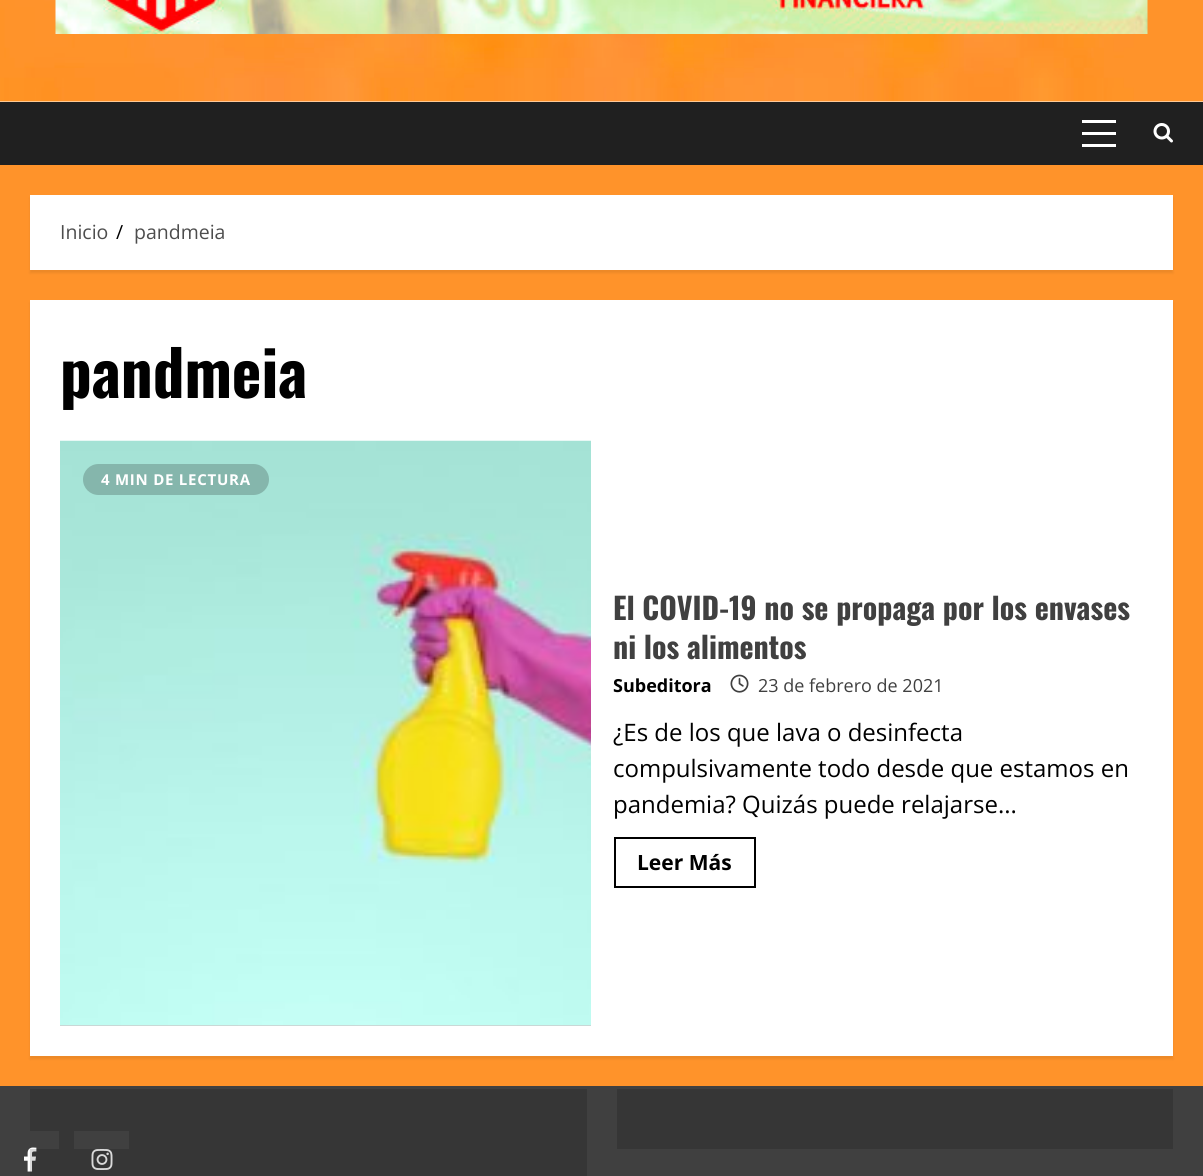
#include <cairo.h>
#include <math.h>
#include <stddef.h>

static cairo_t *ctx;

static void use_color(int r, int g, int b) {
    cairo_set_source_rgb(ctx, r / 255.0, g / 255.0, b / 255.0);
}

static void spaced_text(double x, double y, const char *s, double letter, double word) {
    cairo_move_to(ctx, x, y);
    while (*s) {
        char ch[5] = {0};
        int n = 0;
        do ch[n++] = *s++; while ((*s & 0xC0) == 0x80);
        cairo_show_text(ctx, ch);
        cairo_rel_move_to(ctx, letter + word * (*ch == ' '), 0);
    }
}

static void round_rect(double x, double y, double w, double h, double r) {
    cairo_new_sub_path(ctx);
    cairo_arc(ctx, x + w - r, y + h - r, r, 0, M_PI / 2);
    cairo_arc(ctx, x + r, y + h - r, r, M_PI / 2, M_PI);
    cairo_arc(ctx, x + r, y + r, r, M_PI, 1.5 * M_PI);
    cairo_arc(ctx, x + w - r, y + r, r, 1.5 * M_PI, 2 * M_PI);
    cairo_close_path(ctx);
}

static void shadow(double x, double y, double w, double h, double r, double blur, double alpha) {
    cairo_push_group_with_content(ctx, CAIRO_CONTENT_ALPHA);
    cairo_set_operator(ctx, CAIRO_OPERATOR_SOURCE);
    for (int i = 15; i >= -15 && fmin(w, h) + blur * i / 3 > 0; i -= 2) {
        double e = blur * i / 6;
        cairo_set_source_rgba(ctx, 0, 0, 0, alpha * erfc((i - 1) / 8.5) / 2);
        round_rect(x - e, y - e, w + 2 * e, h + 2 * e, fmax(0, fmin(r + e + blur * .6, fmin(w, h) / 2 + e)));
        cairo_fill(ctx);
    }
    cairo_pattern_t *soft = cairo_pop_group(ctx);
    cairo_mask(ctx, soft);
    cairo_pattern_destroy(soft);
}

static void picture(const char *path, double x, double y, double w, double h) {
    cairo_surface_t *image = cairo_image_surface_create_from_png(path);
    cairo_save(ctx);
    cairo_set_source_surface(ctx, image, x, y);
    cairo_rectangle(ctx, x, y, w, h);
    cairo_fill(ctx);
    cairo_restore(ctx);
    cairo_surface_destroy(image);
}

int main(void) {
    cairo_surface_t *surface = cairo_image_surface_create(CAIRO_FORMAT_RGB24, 1203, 1176);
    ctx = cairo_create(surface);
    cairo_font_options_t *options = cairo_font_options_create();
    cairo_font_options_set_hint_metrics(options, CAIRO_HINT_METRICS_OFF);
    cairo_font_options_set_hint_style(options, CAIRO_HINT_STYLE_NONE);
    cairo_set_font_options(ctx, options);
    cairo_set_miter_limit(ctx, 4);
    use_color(255, 147, 42);
    cairo_paint(ctx);
    use_color(255, 255, 255);
    cairo_rectangle(ctx, 0, 101, 1203, 1);
    cairo_fill(ctx);
    picture("img1.png", 0, 0, 1203, 102);
    picture("img2.png", 55, 0, 1093, 34);
    use_color(32, 32, 32);
    cairo_rectangle(ctx, 0, 102, 1203, 63);
    cairo_fill(ctx);
    use_color(255, 255, 255);
    cairo_rectangle(ctx, 1082, 132, 34, 3);
    cairo_fill(ctx);
    cairo_rectangle(ctx, 1082, 120, 34, 3);
    cairo_fill(ctx);
    cairo_rectangle(ctx, 1082, 144, 34, 3);
    cairo_fill(ctx);
    picture("img3.png", 1153, 123, 20, 20);
    use_color(0, 0, 0);
    shadow(30, 198, 1143, 75, 0, 1.5, 0.08);
    use_color(255, 255, 255);
    cairo_rectangle(ctx, 30, 195, 1143, 75);
    cairo_fill(ctx);
    cairo_select_font_face(ctx, "Open Sans", CAIRO_FONT_SLANT_NORMAL, CAIRO_FONT_WEIGHT_NORMAL);
    cairo_set_font_size(ctx, 19.5);
    use_color(77, 77, 77);
    cairo_move_to(ctx, 60, 239);
    cairo_show_text(ctx, "Inicio");
    use_color(0, 0, 0);
    cairo_move_to(ctx, 116, 239);
    cairo_show_text(ctx, "/");
    use_color(77, 77, 77);
    cairo_move_to(ctx, 134, 239);
    cairo_show_text(ctx, "pandmeia");
    use_color(0, 0, 0);
    shadow(30, 303, 1143, 756, 0, 1.5, 0.08);
    use_color(255, 255, 255);
    cairo_rectangle(ctx, 30, 300, 1143, 756);
    cairo_fill(ctx);
    cairo_select_font_face(ctx, "Oswald", CAIRO_FONT_SLANT_NORMAL, CAIRO_FONT_WEIGHT_BOLD);
    cairo_set_font_size(ctx, 63);
    use_color(0, 0, 0);
    cairo_move_to(ctx, 60, 398);
    cairo_show_text(ctx, "pandmeia");
    use_color(204, 204, 204);
    cairo_rectangle(ctx, 60, 1025, 531, 1);
    cairo_fill(ctx);
    picture("img4.png", 60, 440, 531, 586);
    use_color(133, 182, 172);
    round_rect(83, 464, 186, 31, 15.5);
    cairo_fill(ctx);
    cairo_select_font_face(ctx, "Open Sans", CAIRO_FONT_SLANT_NORMAL, CAIRO_FONT_WEIGHT_BOLD);
    cairo_set_font_size(ctx, 15);
    use_color(255, 255, 255);
    spaced_text(101, 485, "4 MIN DE LECTURA", 0.75, 0);
    cairo_select_font_face(ctx, "Oswald", CAIRO_FONT_SLANT_NORMAL, CAIRO_FONT_WEIGHT_BOLD);
    cairo_set_font_size(ctx, 30);
    use_color(64, 64, 64);
    cairo_move_to(ctx, 613, 620);
    cairo_show_text(ctx, "El COVID-19 no se propaga por los envases");
    cairo_move_to(ctx, 613, 659);
    cairo_show_text(ctx, "ni los alimentos");
    cairo_select_font_face(ctx, "Open Sans", CAIRO_FONT_SLANT_NORMAL, CAIRO_FONT_WEIGHT_BOLD);
    cairo_set_font_size(ctx, 18);
    use_color(0, 0, 0);
    cairo_move_to(ctx, 613, 692);
    cairo_show_text(ctx, "Subeditora");
    picture("img5.png", 730, 674, 19, 19);
    cairo_select_font_face(ctx, "Open Sans", CAIRO_FONT_SLANT_NORMAL, CAIRO_FONT_WEIGHT_NORMAL);
    use_color(64, 64, 64);
    cairo_move_to(ctx, 758, 692);
    cairo_show_text(ctx, "23 de febrero de 2021");
    cairo_set_font_size(ctx, 24);
    use_color(0, 0, 0);
    cairo_move_to(ctx, 613, 741);
    cairo_show_text(ctx, "¿Es de los que lava o desinfecta");
    cairo_move_to(ctx, 613, 777);
    cairo_show_text(ctx, "compulsivamente todo desde que estamos en");
    cairo_move_to(ctx, 613, 813);
    cairo_show_text(ctx, "pandemia? Quizás puede relajarse...");
    cairo_rectangle(ctx, 615, 838, 140, 49);
    cairo_stroke(ctx);
    cairo_select_font_face(ctx, "Open Sans", CAIRO_FONT_SLANT_NORMAL, CAIRO_FONT_WEIGHT_BOLD);
    cairo_set_font_size(ctx, 21);
    cairo_move_to(ctx, 637, 870);
    cairo_show_text(ctx, "Leer Más");
    use_color(64, 64, 64);
    cairo_rectangle(ctx, 0, 1086, 1203, 90);
    cairo_fill(ctx);
    use_color(54, 54, 54);
    cairo_rectangle(ctx, 30, 1089, 557, 60);
    cairo_fill(ctx);
    use_color(64, 64, 64);
    cairo_rectangle(ctx, 30, 1131, 29, 18);
    cairo_fill(ctx);
    picture("img6.png", 24, 1147, 13, 25);
    cairo_rectangle(ctx, 74, 1131, 55, 18);
    cairo_fill(ctx);
    picture("img7.png", 91, 1149, 22, 21);
    use_color(54, 54, 54);
    cairo_rectangle(ctx, 617, 1089, 556, 60);
    cairo_fill(ctx);
    cairo_set_source_rgba(ctx, 0, 0, 0, 0.15);
    cairo_rectangle(ctx, 30, 1149, 557, 27);
    cairo_fill(ctx);
    cairo_surface_write_to_png(surface, "result.png");
    cairo_font_options_destroy(options);
    cairo_destroy(ctx);
    cairo_surface_destroy(surface);
    return 0;
}
